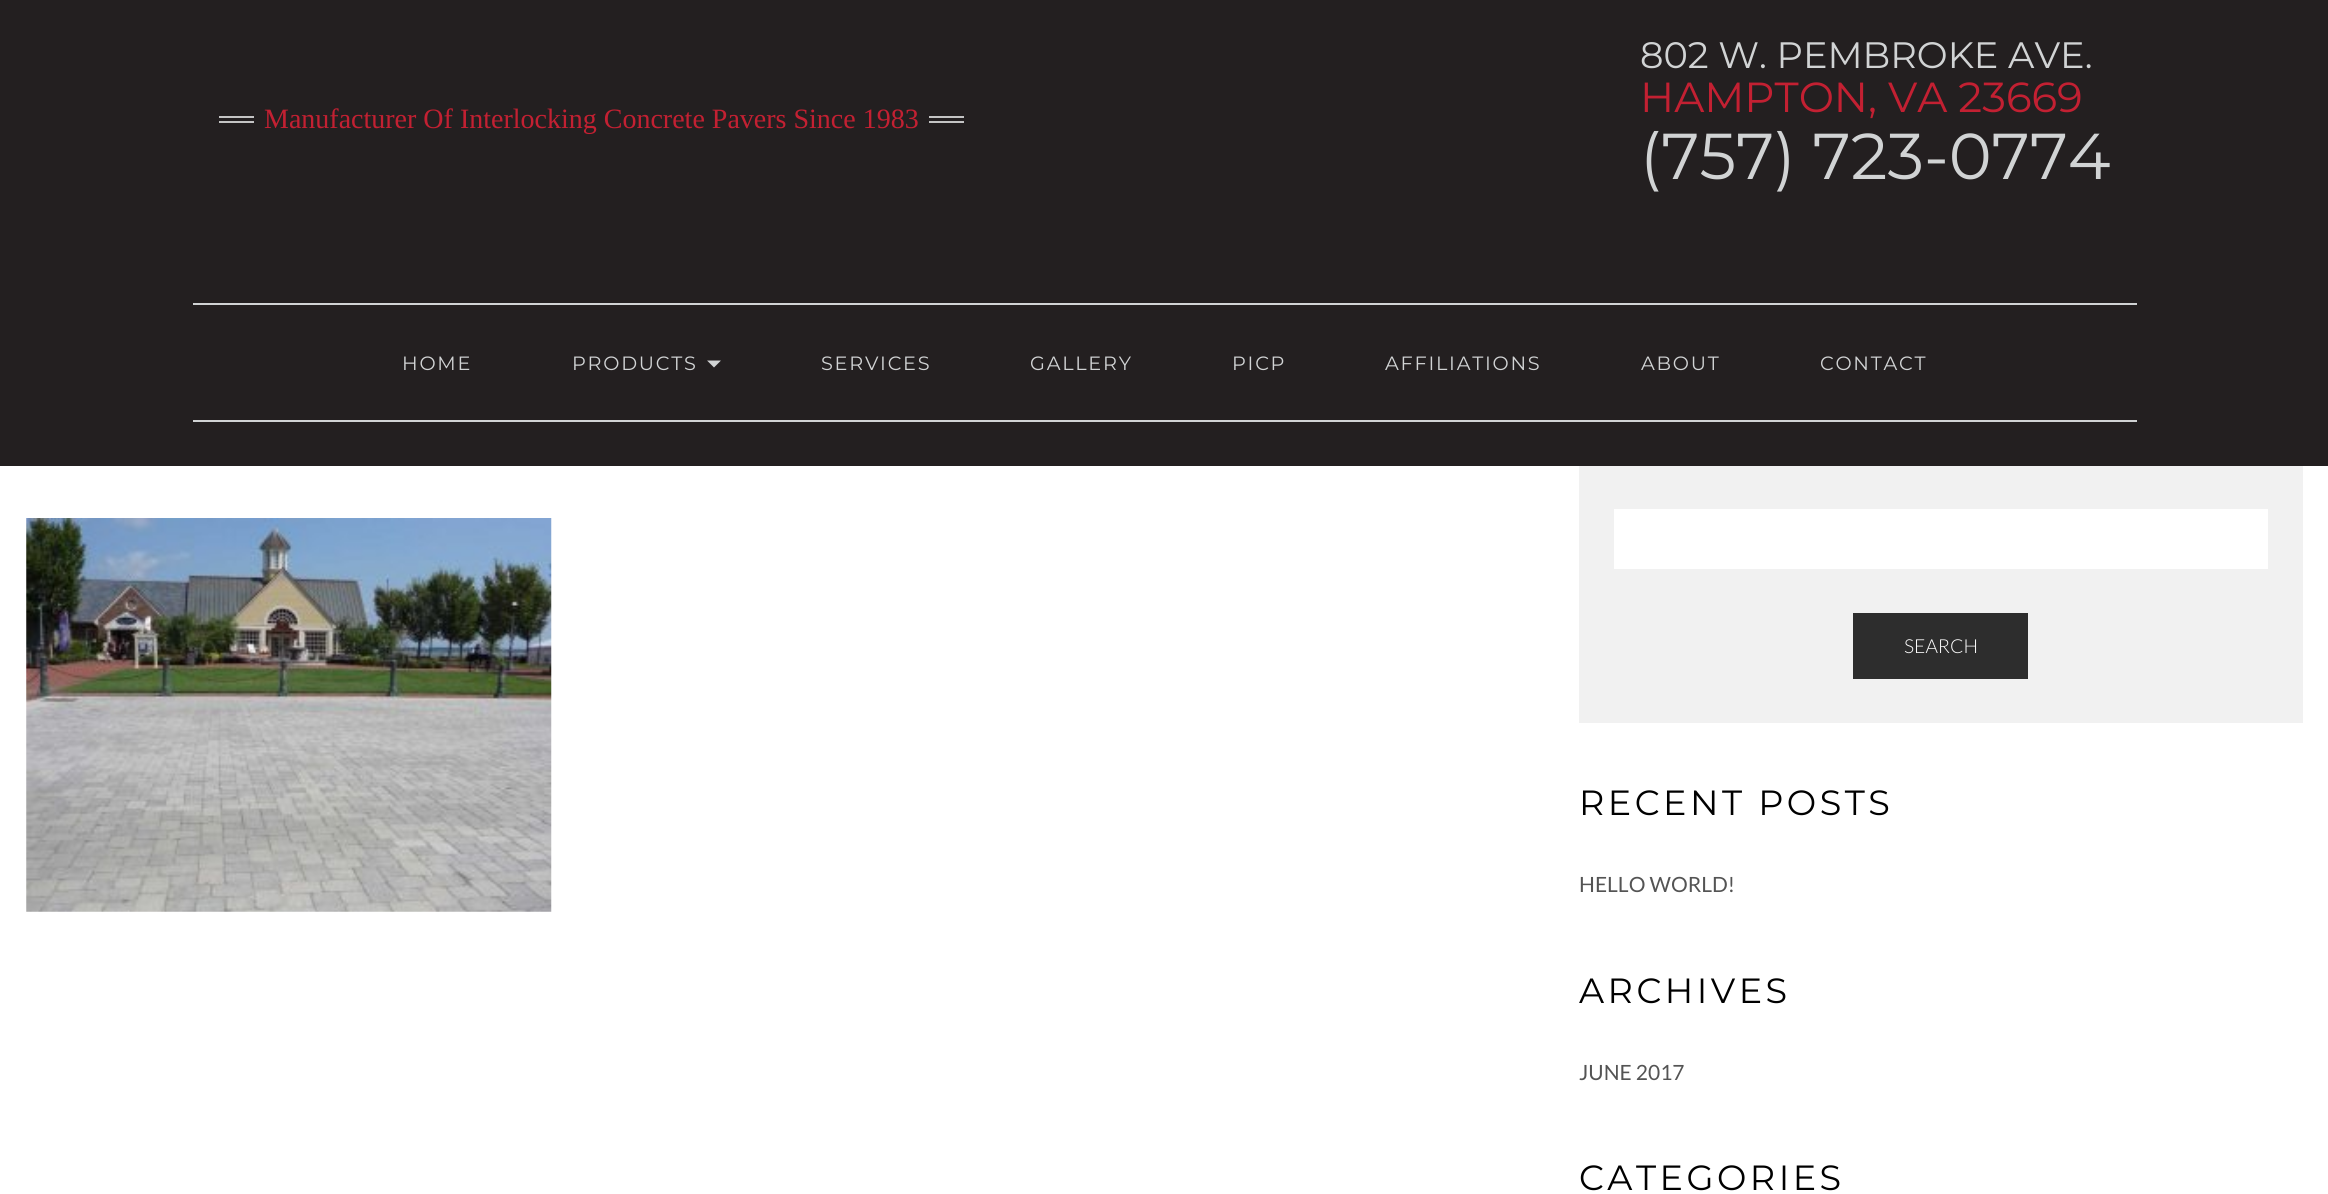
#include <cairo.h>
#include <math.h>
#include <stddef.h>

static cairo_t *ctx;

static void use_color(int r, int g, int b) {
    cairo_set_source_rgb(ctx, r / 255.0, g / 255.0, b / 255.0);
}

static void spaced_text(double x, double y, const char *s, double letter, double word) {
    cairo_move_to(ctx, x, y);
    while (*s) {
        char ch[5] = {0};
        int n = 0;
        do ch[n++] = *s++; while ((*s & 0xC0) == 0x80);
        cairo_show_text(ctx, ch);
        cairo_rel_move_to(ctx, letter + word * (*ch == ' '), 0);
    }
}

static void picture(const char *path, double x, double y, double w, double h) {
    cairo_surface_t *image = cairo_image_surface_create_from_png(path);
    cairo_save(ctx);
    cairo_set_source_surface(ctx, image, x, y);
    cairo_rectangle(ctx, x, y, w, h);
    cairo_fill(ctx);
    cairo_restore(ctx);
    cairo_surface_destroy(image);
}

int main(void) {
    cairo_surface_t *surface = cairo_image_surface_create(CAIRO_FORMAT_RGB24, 2328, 1194);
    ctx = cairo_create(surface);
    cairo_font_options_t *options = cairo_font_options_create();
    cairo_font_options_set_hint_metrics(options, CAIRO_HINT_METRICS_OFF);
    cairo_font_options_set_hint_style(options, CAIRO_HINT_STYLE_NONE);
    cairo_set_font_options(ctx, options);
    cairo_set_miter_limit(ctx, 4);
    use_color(255, 255, 255);
    cairo_paint(ctx);
    use_color(35, 31, 32);
    cairo_rectangle(ctx, 0, 0, 2328, 466);
    cairo_fill(ctx);
    use_color(196, 196, 196);
    cairo_rectangle(ctx, 219, 116, 35, 2);
    cairo_fill(ctx);
    cairo_rectangle(ctx, 219, 121, 35, 2);
    cairo_fill(ctx);
    cairo_select_font_face(ctx, "Liberation Serif", CAIRO_FONT_SLANT_NORMAL, CAIRO_FONT_WEIGHT_NORMAL);
    cairo_set_font_size(ctx, 28);
    use_color(195, 32, 50);
    cairo_move_to(ctx, 264, 128);
    cairo_show_text(ctx, "Manufacturer Of Interlocking Concrete Pavers Since 1983");
    use_color(196, 196, 196);
    cairo_rectangle(ctx, 929, 116, 35, 2);
    cairo_fill(ctx);
    cairo_rectangle(ctx, 929, 121, 35, 2);
    cairo_fill(ctx);
    cairo_select_font_face(ctx, "Montserrat", CAIRO_FONT_SLANT_NORMAL, CAIRO_FONT_WEIGHT_NORMAL);
    cairo_set_font_size(ctx, 36.75);
    use_color(209, 211, 212);
    cairo_move_to(ctx, 1640, 68);
    cairo_show_text(ctx, "802 W. PEMBROKE AVE.");
    cairo_set_font_size(ctx, 42);
    use_color(195, 32, 50);
    cairo_move_to(ctx, 1640, 112);
    cairo_show_text(ctx, "HAMPTON, VA 23669");
    cairo_set_font_size(ctx, 64.75);
    use_color(209, 211, 212);
    cairo_move_to(ctx, 1640, 179);
    cairo_show_text(ctx, "(757) 723-0774");
    cairo_rectangle(ctx, 193, 303, 1944, 2);
    cairo_fill(ctx);
    cairo_rectangle(ctx, 193, 420, 1944, 2);
    cairo_fill(ctx);
    cairo_set_font_size(ctx, 19.25);
    spaced_text(402, 370, "HOME", 1.75, 0);
    spaced_text(572, 370, "PRODUCTS", 1.75, 0);
    cairo_new_path(ctx);
    cairo_move_to(ctx, 707, 360.5);
    cairo_line_to(ctx, 721, 360.5);
    cairo_line_to(ctx, 714, 367.5);
    cairo_close_path(ctx);
    cairo_fill(ctx);
    spaced_text(821, 370, "SERVICES", 1.75, 0);
    spaced_text(1030, 370, "GALLERY", 1.75, 0);
    spaced_text(1232, 370, "PICP", 1.75, 0);
    spaced_text(1385, 370, "AFFILIATIONS", 1.75, 0);
    spaced_text(1641, 370, "ABOUT", 1.75, 0);
    spaced_text(1820, 370, "CONTACT", 1.75, 0);
    picture("img1.png", 26, 518, 526, 394);
    use_color(241, 241, 241);
    cairo_rectangle(ctx, 1579, 466, 724, 257);
    cairo_fill(ctx);
    use_color(255, 255, 255);
    cairo_rectangle(ctx, 1614, 509, 654, 60);
    cairo_fill(ctx);
    use_color(45, 45, 45);
    cairo_rectangle(ctx, 1853, 613, 175, 66);
    cairo_fill(ctx);
    cairo_select_font_face(ctx, "Lato Light", CAIRO_FONT_SLANT_NORMAL, CAIRO_FONT_WEIGHT_NORMAL);
    use_color(255, 255, 255);
    cairo_move_to(ctx, 1904, 653);
    cairo_show_text(ctx, "SEARCH");
    cairo_select_font_face(ctx, "Montserrat", CAIRO_FONT_SLANT_NORMAL, CAIRO_FONT_WEIGHT_NORMAL);
    cairo_set_font_size(ctx, 35);
    use_color(0, 0, 0);
    spaced_text(1579, 815, "RECENT POSTS", 3.5, 0);
    cairo_select_font_face(ctx, "Lato", CAIRO_FONT_SLANT_NORMAL, CAIRO_FONT_WEIGHT_NORMAL);
    cairo_set_font_size(ctx, 21);
    use_color(84, 84, 84);
    cairo_move_to(ctx, 1579, 892);
    cairo_show_text(ctx, "HELLO WORLD!");
    cairo_select_font_face(ctx, "Montserrat", CAIRO_FONT_SLANT_NORMAL, CAIRO_FONT_WEIGHT_NORMAL);
    cairo_set_font_size(ctx, 35);
    use_color(0, 0, 0);
    spaced_text(1579, 1003, "ARCHIVES", 3.5, 0);
    cairo_select_font_face(ctx, "Lato", CAIRO_FONT_SLANT_NORMAL, CAIRO_FONT_WEIGHT_NORMAL);
    cairo_set_font_size(ctx, 21);
    use_color(84, 84, 84);
    cairo_move_to(ctx, 1579, 1080);
    cairo_show_text(ctx, "JUNE 2017");
    cairo_select_font_face(ctx, "Montserrat", CAIRO_FONT_SLANT_NORMAL, CAIRO_FONT_WEIGHT_NORMAL);
    cairo_set_font_size(ctx, 35);
    use_color(0, 0, 0);
    spaced_text(1579, 1190, "CATEGORIES", 3.5, 0);
    cairo_surface_write_to_png(surface, "result.png");
    cairo_font_options_destroy(options);
    cairo_destroy(ctx);
    cairo_surface_destroy(surface);
    return 0;
}
